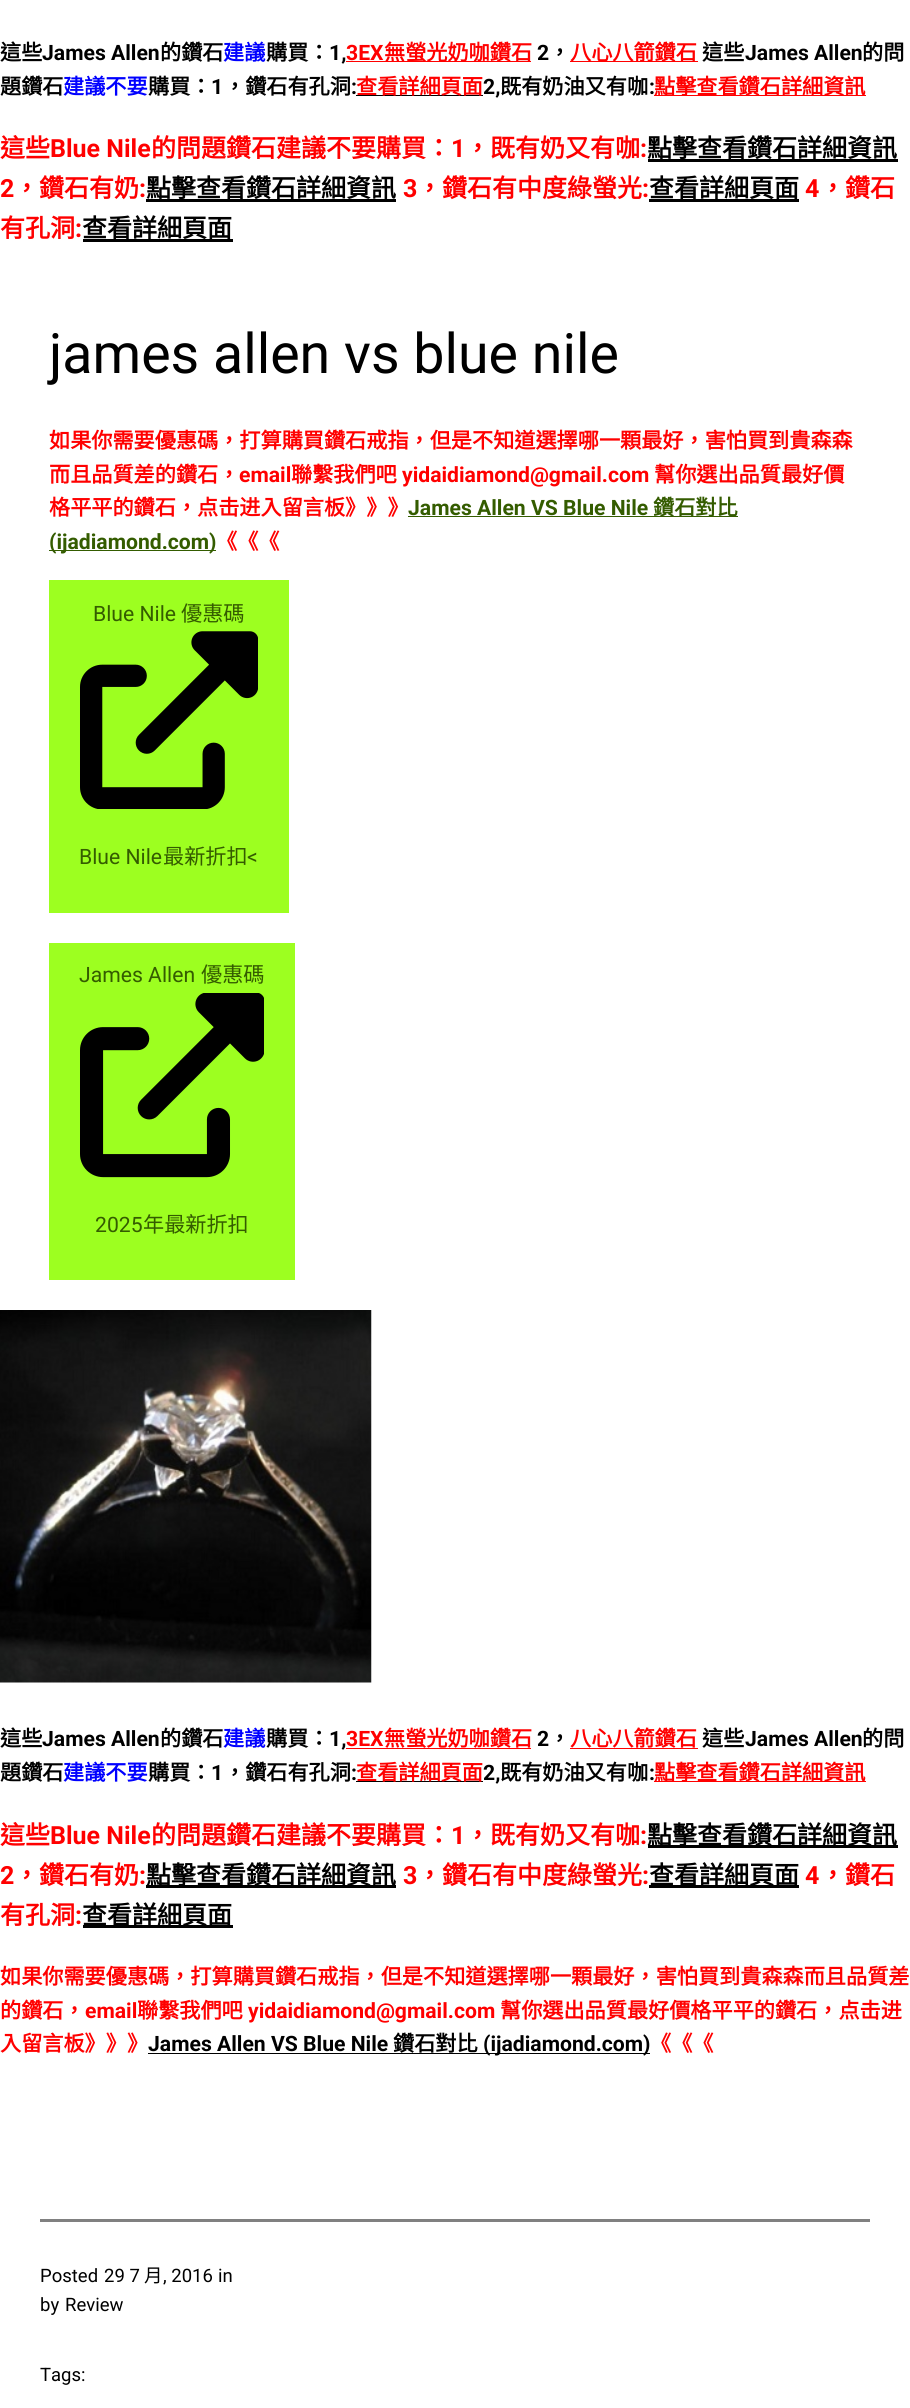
#include <cairo.h>
#include <math.h>
#include <stddef.h>

static cairo_t *ctx;

static void use_color(int r, int g, int b) {
    cairo_set_source_rgb(ctx, r / 255.0, g / 255.0, b / 255.0);
}

static void picture(const char *path, double x, double y, double w, double h) {
    cairo_surface_t *image = cairo_image_surface_create_from_png(path);
    cairo_save(ctx);
    cairo_set_source_surface(ctx, image, x, y);
    cairo_rectangle(ctx, x, y, w, h);
    cairo_fill(ctx);
    cairo_restore(ctx);
    cairo_surface_destroy(image);
}

int main(void) {
    cairo_surface_t *surface = cairo_image_surface_create(CAIRO_FORMAT_RGB24, 910, 2408);
    ctx = cairo_create(surface);
    cairo_font_options_t *options = cairo_font_options_create();
    cairo_font_options_set_hint_metrics(options, CAIRO_HINT_METRICS_OFF);
    cairo_font_options_set_hint_style(options, CAIRO_HINT_STYLE_NONE);
    cairo_set_font_options(ctx, options);
    cairo_set_miter_limit(ctx, 4);
    use_color(255, 255, 255);
    cairo_paint(ctx);
    cairo_select_font_face(ctx, "Noto Sans CJK HK", CAIRO_FONT_SLANT_NORMAL, CAIRO_FONT_WEIGHT_BOLD);
    cairo_set_font_size(ctx, 21.15);
    use_color(0, 0, 0);
    cairo_move_to(ctx, 0, 60);
    cairo_show_text(ctx, "這些");
    cairo_select_font_face(ctx, "Roboto", CAIRO_FONT_SLANT_NORMAL, CAIRO_FONT_WEIGHT_BOLD);
    cairo_move_to(ctx, 42, 60);
    cairo_show_text(ctx, "James Allen");
    cairo_select_font_face(ctx, "Noto Sans CJK HK", CAIRO_FONT_SLANT_NORMAL, CAIRO_FONT_WEIGHT_BOLD);
    cairo_move_to(ctx, 160, 60);
    cairo_show_text(ctx, "的鑽石");
    use_color(0, 0, 255);
    cairo_move_to(ctx, 223, 60);
    cairo_show_text(ctx, "建議");
    use_color(0, 0, 0);
    cairo_move_to(ctx, 266, 60);
    cairo_show_text(ctx, "購買：");
    cairo_select_font_face(ctx, "Roboto", CAIRO_FONT_SLANT_NORMAL, CAIRO_FONT_WEIGHT_BOLD);
    cairo_move_to(ctx, 329, 60);
    cairo_show_text(ctx, "1,");
    use_color(255, 0, 0);
    cairo_rectangle(ctx, 346, 61, 185, 1);
    cairo_fill(ctx);
    cairo_move_to(ctx, 346, 60);
    cairo_show_text(ctx, "3EX");
    cairo_select_font_face(ctx, "Noto Sans CJK HK", CAIRO_FONT_SLANT_NORMAL, CAIRO_FONT_WEIGHT_BOLD);
    cairo_move_to(ctx, 384, 60);
    cairo_show_text(ctx, "無螢光奶咖鑽石");
    cairo_select_font_face(ctx, "Roboto", CAIRO_FONT_SLANT_NORMAL, CAIRO_FONT_WEIGHT_BOLD);
    use_color(0, 0, 0);
    cairo_move_to(ctx, 537, 60);
    cairo_show_text(ctx, "2");
    cairo_select_font_face(ctx, "Noto Sans CJK HK", CAIRO_FONT_SLANT_NORMAL, CAIRO_FONT_WEIGHT_BOLD);
    cairo_move_to(ctx, 549, 60);
    cairo_show_text(ctx, "，");
    use_color(255, 0, 0);
    cairo_rectangle(ctx, 570, 61, 128, 1);
    cairo_fill(ctx);
    cairo_move_to(ctx, 570, 60);
    cairo_show_text(ctx, "八心八箭鑽石");
    use_color(0, 0, 0);
    cairo_move_to(ctx, 702, 60);
    cairo_show_text(ctx, "這些");
    cairo_select_font_face(ctx, "Roboto", CAIRO_FONT_SLANT_NORMAL, CAIRO_FONT_WEIGHT_BOLD);
    cairo_move_to(ctx, 745, 60);
    cairo_show_text(ctx, "James Allen");
    cairo_select_font_face(ctx, "Noto Sans CJK HK", CAIRO_FONT_SLANT_NORMAL, CAIRO_FONT_WEIGHT_BOLD);
    cairo_move_to(ctx, 862, 60);
    cairo_show_text(ctx, "的問");
    cairo_move_to(ctx, 0, 94);
    cairo_show_text(ctx, "題鑽石");
    use_color(0, 0, 255);
    cairo_move_to(ctx, 63, 94);
    cairo_show_text(ctx, "建議不要");
    use_color(0, 0, 0);
    cairo_move_to(ctx, 148, 94);
    cairo_show_text(ctx, "購買：");
    cairo_select_font_face(ctx, "Roboto", CAIRO_FONT_SLANT_NORMAL, CAIRO_FONT_WEIGHT_BOLD);
    cairo_move_to(ctx, 211, 94);
    cairo_show_text(ctx, "1");
    cairo_select_font_face(ctx, "Noto Sans CJK HK", CAIRO_FONT_SLANT_NORMAL, CAIRO_FONT_WEIGHT_BOLD);
    cairo_move_to(ctx, 224, 94);
    cairo_show_text(ctx, "，鑽石有孔洞");
    cairo_select_font_face(ctx, "Roboto", CAIRO_FONT_SLANT_NORMAL, CAIRO_FONT_WEIGHT_BOLD);
    cairo_move_to(ctx, 351, 94);
    cairo_show_text(ctx, ":");
    cairo_rectangle(ctx, 356, 95, 127, 1);
    cairo_fill(ctx);
    cairo_select_font_face(ctx, "Noto Sans CJK HK", CAIRO_FONT_SLANT_NORMAL, CAIRO_FONT_WEIGHT_BOLD);
    use_color(255, 0, 0);
    cairo_move_to(ctx, 356, 94);
    cairo_show_text(ctx, "查看詳細頁面");
    cairo_select_font_face(ctx, "Roboto", CAIRO_FONT_SLANT_NORMAL, CAIRO_FONT_WEIGHT_BOLD);
    use_color(0, 0, 0);
    cairo_move_to(ctx, 483, 94);
    cairo_show_text(ctx, "2,");
    cairo_select_font_face(ctx, "Noto Sans CJK HK", CAIRO_FONT_SLANT_NORMAL, CAIRO_FONT_WEIGHT_BOLD);
    cairo_move_to(ctx, 500, 94);
    cairo_show_text(ctx, "既有奶油又有咖");
    cairo_select_font_face(ctx, "Roboto", CAIRO_FONT_SLANT_NORMAL, CAIRO_FONT_WEIGHT_BOLD);
    cairo_move_to(ctx, 649, 94);
    cairo_show_text(ctx, ":");
    use_color(255, 0, 0);
    cairo_rectangle(ctx, 654, 95, 212, 1);
    cairo_fill(ctx);
    cairo_select_font_face(ctx, "Noto Sans CJK HK", CAIRO_FONT_SLANT_NORMAL, CAIRO_FONT_WEIGHT_BOLD);
    cairo_move_to(ctx, 654, 94);
    cairo_show_text(ctx, "點擊查看鑽石詳細資訊");
    cairo_set_font_size(ctx, 25);
    cairo_move_to(ctx, 0, 157);
    cairo_show_text(ctx, "這些");
    cairo_select_font_face(ctx, "Roboto", CAIRO_FONT_SLANT_NORMAL, CAIRO_FONT_WEIGHT_BOLD);
    cairo_move_to(ctx, 50, 157);
    cairo_show_text(ctx, "Blue Nile");
    cairo_select_font_face(ctx, "Noto Sans CJK HK", CAIRO_FONT_SLANT_NORMAL, CAIRO_FONT_WEIGHT_BOLD);
    cairo_move_to(ctx, 151, 157);
    cairo_show_text(ctx, "的問題鑽石建議不要購買：");
    cairo_select_font_face(ctx, "Roboto", CAIRO_FONT_SLANT_NORMAL, CAIRO_FONT_WEIGHT_BOLD);
    cairo_move_to(ctx, 451, 157);
    cairo_show_text(ctx, "1");
    cairo_select_font_face(ctx, "Noto Sans CJK HK", CAIRO_FONT_SLANT_NORMAL, CAIRO_FONT_WEIGHT_BOLD);
    cairo_move_to(ctx, 465, 157);
    cairo_show_text(ctx, "，既有奶又有咖");
    cairo_select_font_face(ctx, "Roboto", CAIRO_FONT_SLANT_NORMAL, CAIRO_FONT_WEIGHT_BOLD);
    cairo_move_to(ctx, 640, 157);
    cairo_show_text(ctx, ":");
    use_color(0, 0, 0);
    cairo_rectangle(ctx, 648, 159, 250, 3);
    cairo_fill(ctx);
    cairo_select_font_face(ctx, "Noto Sans CJK HK", CAIRO_FONT_SLANT_NORMAL, CAIRO_FONT_WEIGHT_BOLD);
    cairo_move_to(ctx, 647, 157);
    cairo_show_text(ctx, "點擊查看鑽石詳細資訊");
    cairo_select_font_face(ctx, "Roboto", CAIRO_FONT_SLANT_NORMAL, CAIRO_FONT_WEIGHT_BOLD);
    use_color(255, 0, 0);
    cairo_move_to(ctx, 0, 197);
    cairo_show_text(ctx, "2");
    cairo_select_font_face(ctx, "Noto Sans CJK HK", CAIRO_FONT_SLANT_NORMAL, CAIRO_FONT_WEIGHT_BOLD);
    cairo_move_to(ctx, 14, 197);
    cairo_show_text(ctx, "，鑽石有奶");
    cairo_select_font_face(ctx, "Roboto", CAIRO_FONT_SLANT_NORMAL, CAIRO_FONT_WEIGHT_BOLD);
    cairo_move_to(ctx, 139, 197);
    cairo_show_text(ctx, ":");
    use_color(0, 0, 0);
    cairo_rectangle(ctx, 146, 199, 250, 3);
    cairo_fill(ctx);
    cairo_select_font_face(ctx, "Noto Sans CJK HK", CAIRO_FONT_SLANT_NORMAL, CAIRO_FONT_WEIGHT_BOLD);
    cairo_move_to(ctx, 146, 197);
    cairo_show_text(ctx, "點擊查看鑽石詳細資訊");
    cairo_select_font_face(ctx, "Roboto", CAIRO_FONT_SLANT_NORMAL, CAIRO_FONT_WEIGHT_BOLD);
    use_color(255, 0, 0);
    cairo_move_to(ctx, 403, 197);
    cairo_show_text(ctx, "3");
    cairo_select_font_face(ctx, "Noto Sans CJK HK", CAIRO_FONT_SLANT_NORMAL, CAIRO_FONT_WEIGHT_BOLD);
    cairo_move_to(ctx, 417, 197);
    cairo_show_text(ctx, "，鑽石有中度綠螢光");
    cairo_select_font_face(ctx, "Roboto", CAIRO_FONT_SLANT_NORMAL, CAIRO_FONT_WEIGHT_BOLD);
    cairo_move_to(ctx, 642, 197);
    cairo_show_text(ctx, ":");
    use_color(0, 0, 0);
    cairo_rectangle(ctx, 649, 199, 150, 3);
    cairo_fill(ctx);
    cairo_select_font_face(ctx, "Noto Sans CJK HK", CAIRO_FONT_SLANT_NORMAL, CAIRO_FONT_WEIGHT_BOLD);
    cairo_move_to(ctx, 649, 197);
    cairo_show_text(ctx, "查看詳細頁面");
    cairo_select_font_face(ctx, "Roboto", CAIRO_FONT_SLANT_NORMAL, CAIRO_FONT_WEIGHT_BOLD);
    use_color(255, 0, 0);
    cairo_move_to(ctx, 805, 197);
    cairo_show_text(ctx, "4");
    cairo_select_font_face(ctx, "Noto Sans CJK HK", CAIRO_FONT_SLANT_NORMAL, CAIRO_FONT_WEIGHT_BOLD);
    cairo_move_to(ctx, 820, 197);
    cairo_show_text(ctx, "，鑽石");
    cairo_move_to(ctx, 0, 237);
    cairo_show_text(ctx, "有孔洞");
    cairo_select_font_face(ctx, "Roboto", CAIRO_FONT_SLANT_NORMAL, CAIRO_FONT_WEIGHT_BOLD);
    cairo_move_to(ctx, 75, 237);
    cairo_show_text(ctx, ":");
    use_color(0, 0, 0);
    cairo_rectangle(ctx, 83, 239, 150, 3);
    cairo_fill(ctx);
    cairo_select_font_face(ctx, "Noto Sans CJK HK", CAIRO_FONT_SLANT_NORMAL, CAIRO_FONT_WEIGHT_BOLD);
    cairo_move_to(ctx, 82, 237);
    cairo_show_text(ctx, "查看詳細頁面");
    cairo_select_font_face(ctx, "Roboto", CAIRO_FONT_SLANT_NORMAL, CAIRO_FONT_WEIGHT_NORMAL);
    cairo_set_font_size(ctx, 55.5);
    cairo_move_to(ctx, 49, 373);
    cairo_show_text(ctx, "james allen vs blue nile");
    cairo_select_font_face(ctx, "Noto Sans CJK HK", CAIRO_FONT_SLANT_NORMAL, CAIRO_FONT_WEIGHT_BOLD);
    cairo_set_font_size(ctx, 21.15);
    use_color(255, 0, 0);
    cairo_move_to(ctx, 49, 448);
    cairo_show_text(ctx, "如果你需要優惠碼，打算購買鑽石戒指，但是不知道選擇哪一顆最好，害怕買到貴森森");
    cairo_move_to(ctx, 49, 482);
    cairo_show_text(ctx, "而且品質差的鑽石，");
    cairo_select_font_face(ctx, "Roboto", CAIRO_FONT_SLANT_NORMAL, CAIRO_FONT_WEIGHT_BOLD);
    cairo_move_to(ctx, 239, 482);
    cairo_show_text(ctx, "email");
    cairo_select_font_face(ctx, "Noto Sans CJK HK", CAIRO_FONT_SLANT_NORMAL, CAIRO_FONT_WEIGHT_BOLD);
    cairo_move_to(ctx, 291, 482);
    cairo_show_text(ctx, "聯繫我們吧");
    cairo_select_font_face(ctx, "Roboto", CAIRO_FONT_SLANT_NORMAL, CAIRO_FONT_WEIGHT_BOLD);
    cairo_move_to(ctx, 402, 482);
    cairo_show_text(ctx, "yidaidiamond@gmail.com");
    cairo_select_font_face(ctx, "Noto Sans CJK HK", CAIRO_FONT_SLANT_NORMAL, CAIRO_FONT_WEIGHT_BOLD);
    cairo_move_to(ctx, 654, 482);
    cairo_show_text(ctx, "幫你選出品質最好價");
    cairo_move_to(ctx, 49, 515);
    cairo_show_text(ctx, "格平平的鑽石，点击进入留言板》》》");
    cairo_select_font_face(ctx, "Roboto", CAIRO_FONT_SLANT_NORMAL, CAIRO_FONT_WEIGHT_BOLD);
    use_color(52, 92, 0);
    cairo_move_to(ctx, 408, 515);
    cairo_show_text(ctx, "James Allen VS Blue Nile");
    cairo_rectangle(ctx, 408, 516, 330, 1);
    cairo_fill(ctx);
    cairo_select_font_face(ctx, "Noto Sans CJK HK", CAIRO_FONT_SLANT_NORMAL, CAIRO_FONT_WEIGHT_BOLD);
    cairo_move_to(ctx, 653, 515);
    cairo_show_text(ctx, "鑽石對比");
    cairo_rectangle(ctx, 49, 550, 167, 1);
    cairo_fill(ctx);
    cairo_select_font_face(ctx, "Roboto", CAIRO_FONT_SLANT_NORMAL, CAIRO_FONT_WEIGHT_BOLD);
    cairo_move_to(ctx, 49, 549);
    cairo_show_text(ctx, "(ijadiamond.com)");
    cairo_select_font_face(ctx, "Noto Sans CJK HK", CAIRO_FONT_SLANT_NORMAL, CAIRO_FONT_WEIGHT_BOLD);
    use_color(255, 0, 0);
    cairo_move_to(ctx, 216, 549);
    cairo_show_text(ctx, "《《《");
    use_color(157, 255, 32);
    cairo_rectangle(ctx, 49, 580, 240, 333);
    cairo_fill(ctx);
    cairo_select_font_face(ctx, "Roboto", CAIRO_FONT_SLANT_NORMAL, CAIRO_FONT_WEIGHT_NORMAL);
    use_color(52, 92, 0);
    cairo_move_to(ctx, 93, 621);
    cairo_show_text(ctx, "Blue Nile");
    cairo_select_font_face(ctx, "Noto Sans CJK HK", CAIRO_FONT_SLANT_NORMAL, CAIRO_FONT_WEIGHT_NORMAL);
    cairo_move_to(ctx, 181, 621);
    cairo_show_text(ctx, "優惠碼");
    picture("img1.png", 80, 631, 178, 178);
    cairo_select_font_face(ctx, "Roboto", CAIRO_FONT_SLANT_NORMAL, CAIRO_FONT_WEIGHT_NORMAL);
    cairo_move_to(ctx, 79, 864);
    cairo_show_text(ctx, "Blue Nile");
    cairo_select_font_face(ctx, "Noto Sans CJK HK", CAIRO_FONT_SLANT_NORMAL, CAIRO_FONT_WEIGHT_NORMAL);
    cairo_move_to(ctx, 163, 864);
    cairo_show_text(ctx, "最新折扣");
    cairo_select_font_face(ctx, "Roboto", CAIRO_FONT_SLANT_NORMAL, CAIRO_FONT_WEIGHT_NORMAL);
    cairo_move_to(ctx, 247, 864);
    cairo_show_text(ctx, "<");
    use_color(157, 255, 32);
    cairo_rectangle(ctx, 49, 943, 246, 337);
    cairo_fill(ctx);
    use_color(52, 92, 0);
    cairo_move_to(ctx, 79, 982);
    cairo_show_text(ctx, "James Allen");
    cairo_select_font_face(ctx, "Noto Sans CJK HK", CAIRO_FONT_SLANT_NORMAL, CAIRO_FONT_WEIGHT_NORMAL);
    cairo_move_to(ctx, 201, 982);
    cairo_show_text(ctx, "優惠碼");
    picture("img2.png", 80, 993, 184, 185);
    cairo_select_font_face(ctx, "Roboto", CAIRO_FONT_SLANT_NORMAL, CAIRO_FONT_WEIGHT_NORMAL);
    cairo_move_to(ctx, 95, 1232);
    cairo_show_text(ctx, "2025");
    cairo_select_font_face(ctx, "Noto Sans CJK HK", CAIRO_FONT_SLANT_NORMAL, CAIRO_FONT_WEIGHT_NORMAL);
    cairo_move_to(ctx, 143, 1232);
    cairo_show_text(ctx, "年最新折扣");
    picture("img3.png", 0, 1310, 372, 373);
    cairo_select_font_face(ctx, "Noto Sans CJK HK", CAIRO_FONT_SLANT_NORMAL, CAIRO_FONT_WEIGHT_BOLD);
    use_color(0, 0, 0);
    cairo_move_to(ctx, 0, 1746);
    cairo_show_text(ctx, "這些");
    cairo_select_font_face(ctx, "Roboto", CAIRO_FONT_SLANT_NORMAL, CAIRO_FONT_WEIGHT_BOLD);
    cairo_move_to(ctx, 42, 1746);
    cairo_show_text(ctx, "James Allen");
    cairo_select_font_face(ctx, "Noto Sans CJK HK", CAIRO_FONT_SLANT_NORMAL, CAIRO_FONT_WEIGHT_BOLD);
    cairo_move_to(ctx, 160, 1746);
    cairo_show_text(ctx, "的鑽石");
    use_color(0, 0, 255);
    cairo_move_to(ctx, 223, 1746);
    cairo_show_text(ctx, "建議");
    use_color(0, 0, 0);
    cairo_move_to(ctx, 266, 1746);
    cairo_show_text(ctx, "購買：");
    cairo_select_font_face(ctx, "Roboto", CAIRO_FONT_SLANT_NORMAL, CAIRO_FONT_WEIGHT_BOLD);
    cairo_move_to(ctx, 329, 1746);
    cairo_show_text(ctx, "1,");
    use_color(255, 0, 0);
    cairo_rectangle(ctx, 346, 1748, 185, 1);
    cairo_fill(ctx);
    cairo_move_to(ctx, 346, 1746);
    cairo_show_text(ctx, "3EX");
    cairo_select_font_face(ctx, "Noto Sans CJK HK", CAIRO_FONT_SLANT_NORMAL, CAIRO_FONT_WEIGHT_BOLD);
    cairo_move_to(ctx, 384, 1746);
    cairo_show_text(ctx, "無螢光奶咖鑽石");
    cairo_select_font_face(ctx, "Roboto", CAIRO_FONT_SLANT_NORMAL, CAIRO_FONT_WEIGHT_BOLD);
    use_color(0, 0, 0);
    cairo_move_to(ctx, 537, 1746);
    cairo_show_text(ctx, "2");
    cairo_select_font_face(ctx, "Noto Sans CJK HK", CAIRO_FONT_SLANT_NORMAL, CAIRO_FONT_WEIGHT_BOLD);
    cairo_move_to(ctx, 549, 1746);
    cairo_show_text(ctx, "，");
    use_color(255, 0, 0);
    cairo_move_to(ctx, 570, 1746);
    cairo_show_text(ctx, "八心八箭鑽石");
    cairo_rectangle(ctx, 570, 1748, 128, 1);
    cairo_fill(ctx);
    use_color(0, 0, 0);
    cairo_move_to(ctx, 702, 1746);
    cairo_show_text(ctx, "這些");
    cairo_select_font_face(ctx, "Roboto", CAIRO_FONT_SLANT_NORMAL, CAIRO_FONT_WEIGHT_BOLD);
    cairo_move_to(ctx, 745, 1746);
    cairo_show_text(ctx, "James Allen");
    cairo_select_font_face(ctx, "Noto Sans CJK HK", CAIRO_FONT_SLANT_NORMAL, CAIRO_FONT_WEIGHT_BOLD);
    cairo_move_to(ctx, 862, 1746);
    cairo_show_text(ctx, "的問");
    cairo_move_to(ctx, 0, 1780);
    cairo_show_text(ctx, "題鑽石");
    use_color(0, 0, 255);
    cairo_move_to(ctx, 63, 1780);
    cairo_show_text(ctx, "建議不要");
    use_color(0, 0, 0);
    cairo_move_to(ctx, 148, 1780);
    cairo_show_text(ctx, "購買：");
    cairo_select_font_face(ctx, "Roboto", CAIRO_FONT_SLANT_NORMAL, CAIRO_FONT_WEIGHT_BOLD);
    cairo_move_to(ctx, 211, 1780);
    cairo_show_text(ctx, "1");
    cairo_select_font_face(ctx, "Noto Sans CJK HK", CAIRO_FONT_SLANT_NORMAL, CAIRO_FONT_WEIGHT_BOLD);
    cairo_move_to(ctx, 224, 1780);
    cairo_show_text(ctx, "，鑽石有孔洞");
    cairo_select_font_face(ctx, "Roboto", CAIRO_FONT_SLANT_NORMAL, CAIRO_FONT_WEIGHT_BOLD);
    cairo_move_to(ctx, 351, 1780);
    cairo_show_text(ctx, ":");
    cairo_rectangle(ctx, 356, 1781, 127, 1);
    cairo_fill(ctx);
    cairo_select_font_face(ctx, "Noto Sans CJK HK", CAIRO_FONT_SLANT_NORMAL, CAIRO_FONT_WEIGHT_BOLD);
    use_color(255, 0, 0);
    cairo_move_to(ctx, 356, 1780);
    cairo_show_text(ctx, "查看詳細頁面");
    cairo_select_font_face(ctx, "Roboto", CAIRO_FONT_SLANT_NORMAL, CAIRO_FONT_WEIGHT_BOLD);
    use_color(0, 0, 0);
    cairo_move_to(ctx, 483, 1780);
    cairo_show_text(ctx, "2,");
    cairo_select_font_face(ctx, "Noto Sans CJK HK", CAIRO_FONT_SLANT_NORMAL, CAIRO_FONT_WEIGHT_BOLD);
    cairo_move_to(ctx, 500, 1780);
    cairo_show_text(ctx, "既有奶油又有咖");
    cairo_select_font_face(ctx, "Roboto", CAIRO_FONT_SLANT_NORMAL, CAIRO_FONT_WEIGHT_BOLD);
    cairo_move_to(ctx, 649, 1780);
    cairo_show_text(ctx, ":");
    use_color(255, 0, 0);
    cairo_rectangle(ctx, 654, 1781, 212, 1);
    cairo_fill(ctx);
    cairo_select_font_face(ctx, "Noto Sans CJK HK", CAIRO_FONT_SLANT_NORMAL, CAIRO_FONT_WEIGHT_BOLD);
    cairo_move_to(ctx, 654, 1780);
    cairo_show_text(ctx, "點擊查看鑽石詳細資訊");
    cairo_set_font_size(ctx, 25);
    cairo_move_to(ctx, 0, 1844);
    cairo_show_text(ctx, "這些");
    cairo_select_font_face(ctx, "Roboto", CAIRO_FONT_SLANT_NORMAL, CAIRO_FONT_WEIGHT_BOLD);
    cairo_move_to(ctx, 50, 1844);
    cairo_show_text(ctx, "Blue Nile");
    cairo_select_font_face(ctx, "Noto Sans CJK HK", CAIRO_FONT_SLANT_NORMAL, CAIRO_FONT_WEIGHT_BOLD);
    cairo_move_to(ctx, 151, 1844);
    cairo_show_text(ctx, "的問題鑽石建議不要購買：");
    cairo_select_font_face(ctx, "Roboto", CAIRO_FONT_SLANT_NORMAL, CAIRO_FONT_WEIGHT_BOLD);
    cairo_move_to(ctx, 451, 1844);
    cairo_show_text(ctx, "1");
    cairo_select_font_face(ctx, "Noto Sans CJK HK", CAIRO_FONT_SLANT_NORMAL, CAIRO_FONT_WEIGHT_BOLD);
    cairo_move_to(ctx, 465, 1844);
    cairo_show_text(ctx, "，既有奶又有咖");
    cairo_select_font_face(ctx, "Roboto", CAIRO_FONT_SLANT_NORMAL, CAIRO_FONT_WEIGHT_BOLD);
    cairo_move_to(ctx, 640, 1844);
    cairo_show_text(ctx, ":");
    use_color(0, 0, 0);
    cairo_rectangle(ctx, 648, 1845, 250, 3);
    cairo_fill(ctx);
    cairo_select_font_face(ctx, "Noto Sans CJK HK", CAIRO_FONT_SLANT_NORMAL, CAIRO_FONT_WEIGHT_BOLD);
    cairo_move_to(ctx, 647, 1844);
    cairo_show_text(ctx, "點擊查看鑽石詳細資訊");
    cairo_select_font_face(ctx, "Roboto", CAIRO_FONT_SLANT_NORMAL, CAIRO_FONT_WEIGHT_BOLD);
    use_color(255, 0, 0);
    cairo_move_to(ctx, 0, 1884);
    cairo_show_text(ctx, "2");
    cairo_select_font_face(ctx, "Noto Sans CJK HK", CAIRO_FONT_SLANT_NORMAL, CAIRO_FONT_WEIGHT_BOLD);
    cairo_move_to(ctx, 14, 1884);
    cairo_show_text(ctx, "，鑽石有奶");
    cairo_select_font_face(ctx, "Roboto", CAIRO_FONT_SLANT_NORMAL, CAIRO_FONT_WEIGHT_BOLD);
    cairo_move_to(ctx, 139, 1884);
    cairo_show_text(ctx, ":");
    use_color(0, 0, 0);
    cairo_rectangle(ctx, 146, 1885, 250, 3);
    cairo_fill(ctx);
    cairo_select_font_face(ctx, "Noto Sans CJK HK", CAIRO_FONT_SLANT_NORMAL, CAIRO_FONT_WEIGHT_BOLD);
    cairo_move_to(ctx, 146, 1884);
    cairo_show_text(ctx, "點擊查看鑽石詳細資訊");
    cairo_select_font_face(ctx, "Roboto", CAIRO_FONT_SLANT_NORMAL, CAIRO_FONT_WEIGHT_BOLD);
    use_color(255, 0, 0);
    cairo_move_to(ctx, 403, 1884);
    cairo_show_text(ctx, "3");
    cairo_select_font_face(ctx, "Noto Sans CJK HK", CAIRO_FONT_SLANT_NORMAL, CAIRO_FONT_WEIGHT_BOLD);
    cairo_move_to(ctx, 417, 1884);
    cairo_show_text(ctx, "，鑽石有中度綠螢光");
    cairo_select_font_face(ctx, "Roboto", CAIRO_FONT_SLANT_NORMAL, CAIRO_FONT_WEIGHT_BOLD);
    cairo_move_to(ctx, 642, 1884);
    cairo_show_text(ctx, ":");
    use_color(0, 0, 0);
    cairo_rectangle(ctx, 649, 1885, 150, 3);
    cairo_fill(ctx);
    cairo_select_font_face(ctx, "Noto Sans CJK HK", CAIRO_FONT_SLANT_NORMAL, CAIRO_FONT_WEIGHT_BOLD);
    cairo_move_to(ctx, 649, 1884);
    cairo_show_text(ctx, "查看詳細頁面");
    cairo_select_font_face(ctx, "Roboto", CAIRO_FONT_SLANT_NORMAL, CAIRO_FONT_WEIGHT_BOLD);
    use_color(255, 0, 0);
    cairo_move_to(ctx, 805, 1884);
    cairo_show_text(ctx, "4");
    cairo_select_font_face(ctx, "Noto Sans CJK HK", CAIRO_FONT_SLANT_NORMAL, CAIRO_FONT_WEIGHT_BOLD);
    cairo_move_to(ctx, 820, 1884);
    cairo_show_text(ctx, "，鑽石");
    cairo_move_to(ctx, 0, 1924);
    cairo_show_text(ctx, "有孔洞");
    cairo_select_font_face(ctx, "Roboto", CAIRO_FONT_SLANT_NORMAL, CAIRO_FONT_WEIGHT_BOLD);
    cairo_move_to(ctx, 75, 1924);
    cairo_show_text(ctx, ":");
    use_color(0, 0, 0);
    cairo_rectangle(ctx, 83, 1925, 150, 3);
    cairo_fill(ctx);
    cairo_select_font_face(ctx, "Noto Sans CJK HK", CAIRO_FONT_SLANT_NORMAL, CAIRO_FONT_WEIGHT_BOLD);
    cairo_move_to(ctx, 82, 1924);
    cairo_show_text(ctx, "查看詳細頁面");
    cairo_set_font_size(ctx, 21.15);
    use_color(255, 0, 0);
    cairo_move_to(ctx, 0, 1984);
    cairo_show_text(ctx, "如果你需要優惠碼，打算購買鑽石戒指，但是不知道選擇哪一顆最好，害怕買到貴森森而且品質差");
    cairo_move_to(ctx, 0, 2018);
    cairo_show_text(ctx, "的鑽石，");
    cairo_select_font_face(ctx, "Roboto", CAIRO_FONT_SLANT_NORMAL, CAIRO_FONT_WEIGHT_BOLD);
    cairo_move_to(ctx, 85, 2018);
    cairo_show_text(ctx, "email");
    cairo_select_font_face(ctx, "Noto Sans CJK HK", CAIRO_FONT_SLANT_NORMAL, CAIRO_FONT_WEIGHT_BOLD);
    cairo_move_to(ctx, 137, 2018);
    cairo_show_text(ctx, "聯繫我們吧");
    cairo_select_font_face(ctx, "Roboto", CAIRO_FONT_SLANT_NORMAL, CAIRO_FONT_WEIGHT_BOLD);
    cairo_move_to(ctx, 248, 2018);
    cairo_show_text(ctx, "yidaidiamond@gmail.com");
    cairo_select_font_face(ctx, "Noto Sans CJK HK", CAIRO_FONT_SLANT_NORMAL, CAIRO_FONT_WEIGHT_BOLD);
    cairo_move_to(ctx, 500, 2018);
    cairo_show_text(ctx, "幫你選出品質最好價格平平的鑽石，点击进");
    cairo_move_to(ctx, 0, 2051);
    cairo_show_text(ctx, "入留言板》》》");
    cairo_select_font_face(ctx, "Roboto", CAIRO_FONT_SLANT_NORMAL, CAIRO_FONT_WEIGHT_BOLD);
    use_color(0, 0, 0);
    cairo_move_to(ctx, 148, 2051);
    cairo_show_text(ctx, "James Allen VS Blue Nile");
    cairo_select_font_face(ctx, "Noto Sans CJK HK", CAIRO_FONT_SLANT_NORMAL, CAIRO_FONT_WEIGHT_BOLD);
    cairo_move_to(ctx, 393, 2051);
    cairo_show_text(ctx, "鑽石對比");
    cairo_rectangle(ctx, 148, 2053, 502, 1);
    cairo_fill(ctx);
    cairo_select_font_face(ctx, "Roboto", CAIRO_FONT_SLANT_NORMAL, CAIRO_FONT_WEIGHT_BOLD);
    cairo_move_to(ctx, 483, 2051);
    cairo_show_text(ctx, "(ijadiamond.com)");
    cairo_select_font_face(ctx, "Noto Sans CJK HK", CAIRO_FONT_SLANT_NORMAL, CAIRO_FONT_WEIGHT_BOLD);
    use_color(255, 0, 0);
    cairo_move_to(ctx, 650, 2051);
    cairo_show_text(ctx, "《《《");
    use_color(128, 128, 128);
    cairo_rectangle(ctx, 40, 2219, 830, 3);
    cairo_fill(ctx);
    cairo_select_font_face(ctx, "Roboto", CAIRO_FONT_SLANT_NORMAL, CAIRO_FONT_WEIGHT_NORMAL);
    cairo_set_font_size(ctx, 18.5);
    use_color(0, 0, 0);
    cairo_move_to(ctx, 40, 2282);
    cairo_show_text(ctx, "Posted");
    cairo_move_to(ctx, 104, 2282);
    cairo_show_text(ctx, "29 7");
    cairo_select_font_face(ctx, "Noto Sans CJK HK", CAIRO_FONT_SLANT_NORMAL, CAIRO_FONT_WEIGHT_NORMAL);
    cairo_move_to(ctx, 144, 2282);
    cairo_show_text(ctx, "月");
    cairo_select_font_face(ctx, "Roboto", CAIRO_FONT_SLANT_NORMAL, CAIRO_FONT_WEIGHT_NORMAL);
    cairo_move_to(ctx, 163, 2282);
    cairo_show_text(ctx, ", 2016");
    cairo_move_to(ctx, 218, 2282);
    cairo_show_text(ctx, "in");
    cairo_move_to(ctx, 40, 2311);
    cairo_show_text(ctx, "by");
    cairo_move_to(ctx, 65, 2311);
    cairo_show_text(ctx, "Review");
    cairo_move_to(ctx, 40, 2381);
    cairo_show_text(ctx, "Tags:");
    cairo_surface_write_to_png(surface, "result.png");
    cairo_font_options_destroy(options);
    cairo_destroy(ctx);
    cairo_surface_destroy(surface);
    return 0;
}
